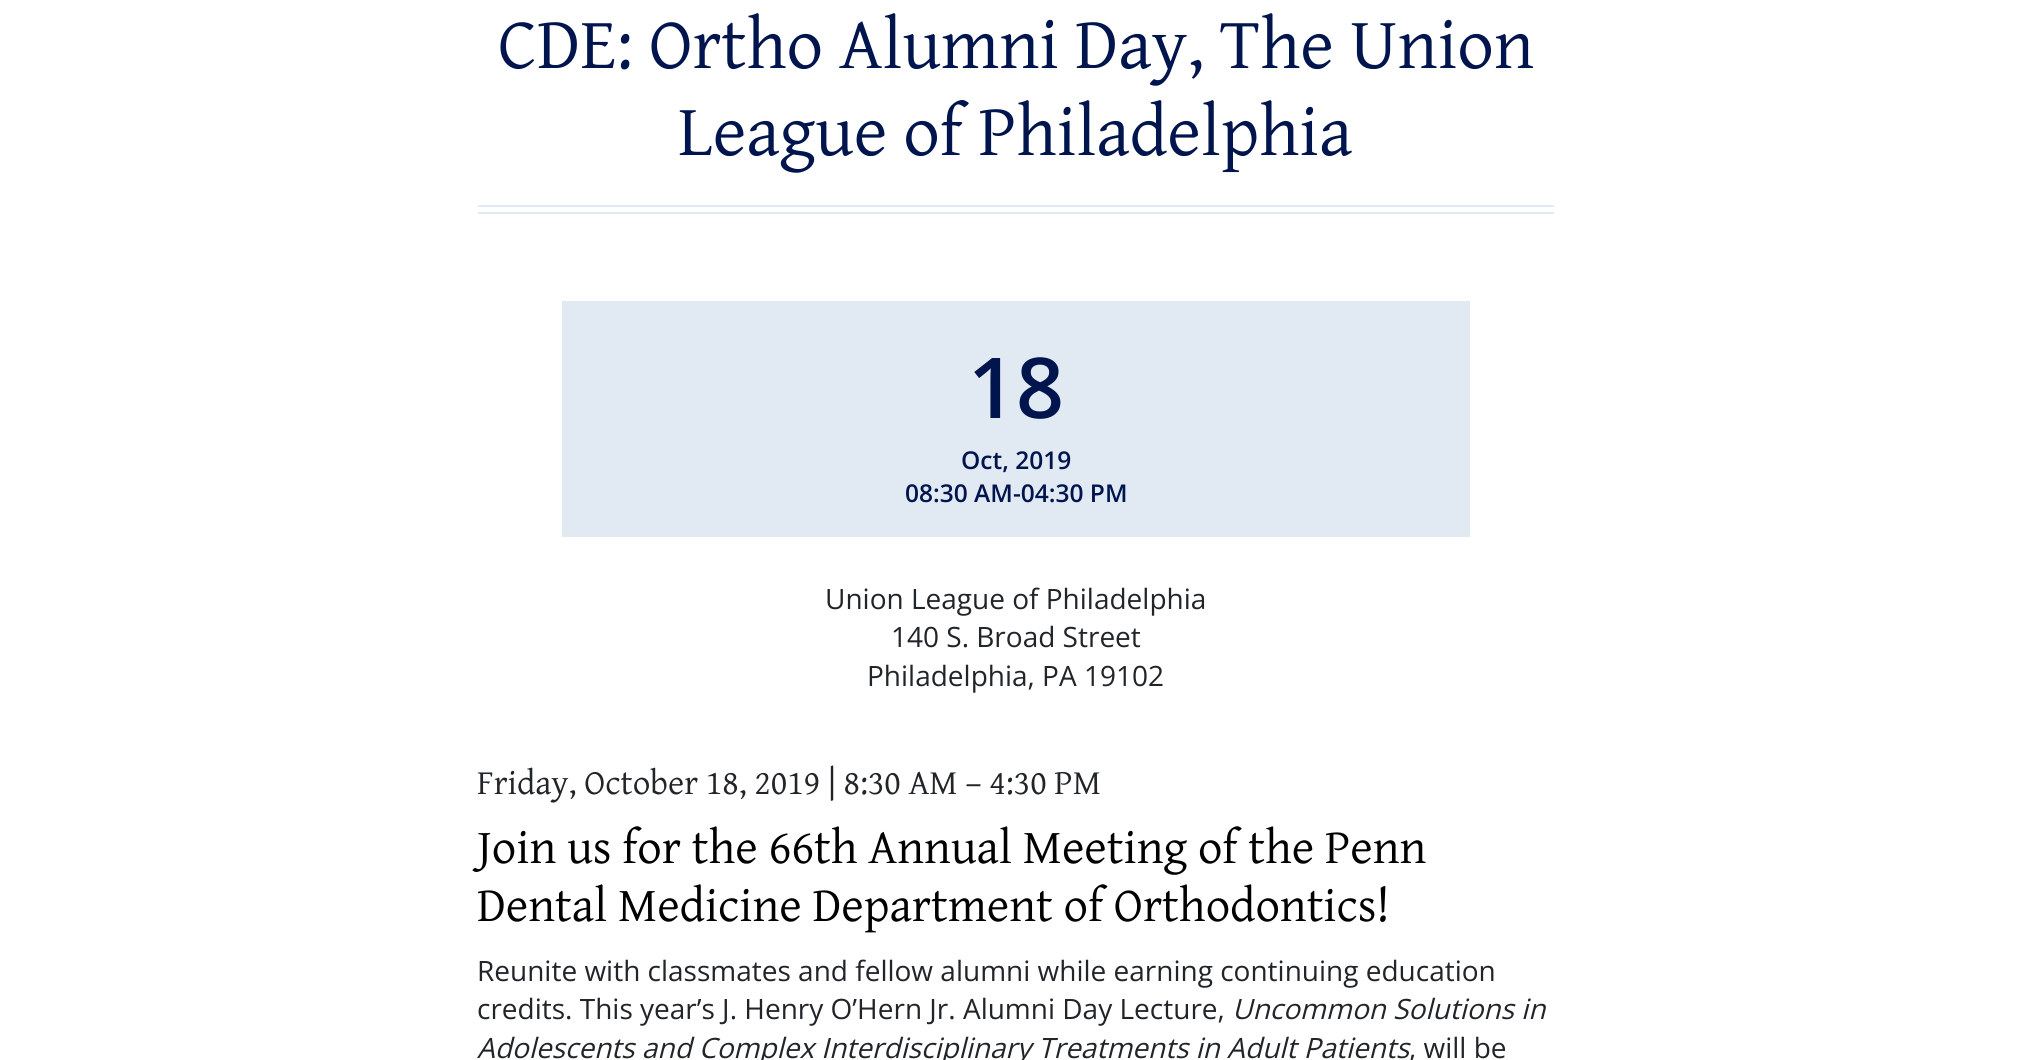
#include <cairo.h>
#include <math.h>
#include <stddef.h>

static cairo_t *ctx;

static void use_color(int r, int g, int b) {
    cairo_set_source_rgb(ctx, r / 255.0, g / 255.0, b / 255.0);
}

int main(void) {
    cairo_surface_t *surface = cairo_image_surface_create(CAIRO_FORMAT_RGB24, 2031, 1060);
    ctx = cairo_create(surface);
    cairo_font_options_t *options = cairo_font_options_create();
    cairo_font_options_set_hint_metrics(options, CAIRO_HINT_METRICS_OFF);
    cairo_font_options_set_hint_style(options, CAIRO_HINT_STYLE_NONE);
    cairo_set_font_options(ctx, options);
    cairo_set_miter_limit(ctx, 4);
    use_color(255, 255, 255);
    cairo_paint(ctx);
    cairo_select_font_face(ctx, "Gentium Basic", CAIRO_FONT_SLANT_NORMAL, CAIRO_FONT_WEIGHT_NORMAL);
    cairo_set_font_size(ctx, 72.75);
    use_color(0, 20, 77);
    cairo_move_to(ctx, 498, 68);
    cairo_show_text(ctx, "CDE: Ortho Alumni Day, The Union");
    cairo_move_to(ctx, 678, 155);
    cairo_show_text(ctx, "League of Philadelphia");
    use_color(225, 234, 242);
    cairo_rectangle(ctx, 478, 205, 1076, 2);
    cairo_fill(ctx);
    cairo_rectangle(ctx, 478, 212, 1076, 2);
    cairo_fill(ctx);
    cairo_rectangle(ctx, 562, 301, 908, 236);
    cairo_fill(ctx);
    cairo_select_font_face(ctx, "Open Sans SemiBold", CAIRO_FONT_SLANT_NORMAL, CAIRO_FONT_WEIGHT_NORMAL);
    cairo_set_font_size(ctx, 84);
    use_color(0, 20, 77);
    cairo_move_to(ctx, 968, 418);
    cairo_show_text(ctx, "18");
    cairo_set_font_size(ctx, 24.5);
    cairo_move_to(ctx, 961, 469);
    cairo_show_text(ctx, "Oct, 2019");
    cairo_move_to(ctx, 905, 502);
    cairo_show_text(ctx, "08:30 AM-04:30 PM");
    cairo_select_font_face(ctx, "Open Sans", CAIRO_FONT_SLANT_NORMAL, CAIRO_FONT_WEIGHT_NORMAL);
    cairo_set_font_size(ctx, 28);
    use_color(33, 37, 41);
    cairo_move_to(ctx, 825, 609);
    cairo_show_text(ctx, "Union League of Philadelphia");
    cairo_move_to(ctx, 891, 647);
    cairo_show_text(ctx, "140 S. Broad Street");
    cairo_move_to(ctx, 867, 686);
    cairo_show_text(ctx, "Philadelphia, PA 19102");
    cairo_select_font_face(ctx, "Gentium Basic", CAIRO_FONT_SLANT_NORMAL, CAIRO_FONT_WEIGHT_NORMAL);
    cairo_set_font_size(ctx, 35);
    cairo_move_to(ctx, 477, 794);
    cairo_show_text(ctx, "Friday, October 18, 2019 | 8:30 AM – 4:30 PM");
    cairo_set_font_size(ctx, 48.6);
    use_color(0, 0, 0);
    cairo_move_to(ctx, 477, 863);
    cairo_show_text(ctx, "Join us for the 66th Annual Meeting of the Penn");
    cairo_move_to(ctx, 477, 921);
    cairo_show_text(ctx, "Dental Medicine Department of Orthodontics!");
    cairo_select_font_face(ctx, "Open Sans", CAIRO_FONT_SLANT_NORMAL, CAIRO_FONT_WEIGHT_NORMAL);
    cairo_set_font_size(ctx, 28);
    use_color(33, 37, 41);
    cairo_move_to(ctx, 477, 981);
    cairo_show_text(ctx, "Reunite with classmates and fellow alumni while earning continuing education");
    cairo_move_to(ctx, 477, 1019);
    cairo_show_text(ctx, "credits. This year’s J. Henry O’Hern Jr. Alumni Day Lecture,");
    cairo_select_font_face(ctx, "Open Sans", CAIRO_FONT_SLANT_ITALIC, CAIRO_FONT_WEIGHT_NORMAL);
    cairo_move_to(ctx, 1232, 1019);
    cairo_show_text(ctx, "Uncommon Solutions in");
    cairo_move_to(ctx, 477, 1058);
    cairo_show_text(ctx, "Adolescents and Complex Interdisciplinary Treatments in Adult Patients");
    cairo_select_font_face(ctx, "Open Sans", CAIRO_FONT_SLANT_NORMAL, CAIRO_FONT_WEIGHT_NORMAL);
    cairo_move_to(ctx, 1409, 1058);
    cairo_show_text(ctx, ", will be");
    cairo_surface_write_to_png(surface, "result.png");
    cairo_font_options_destroy(options);
    cairo_destroy(ctx);
    cairo_surface_destroy(surface);
    return 0;
}
